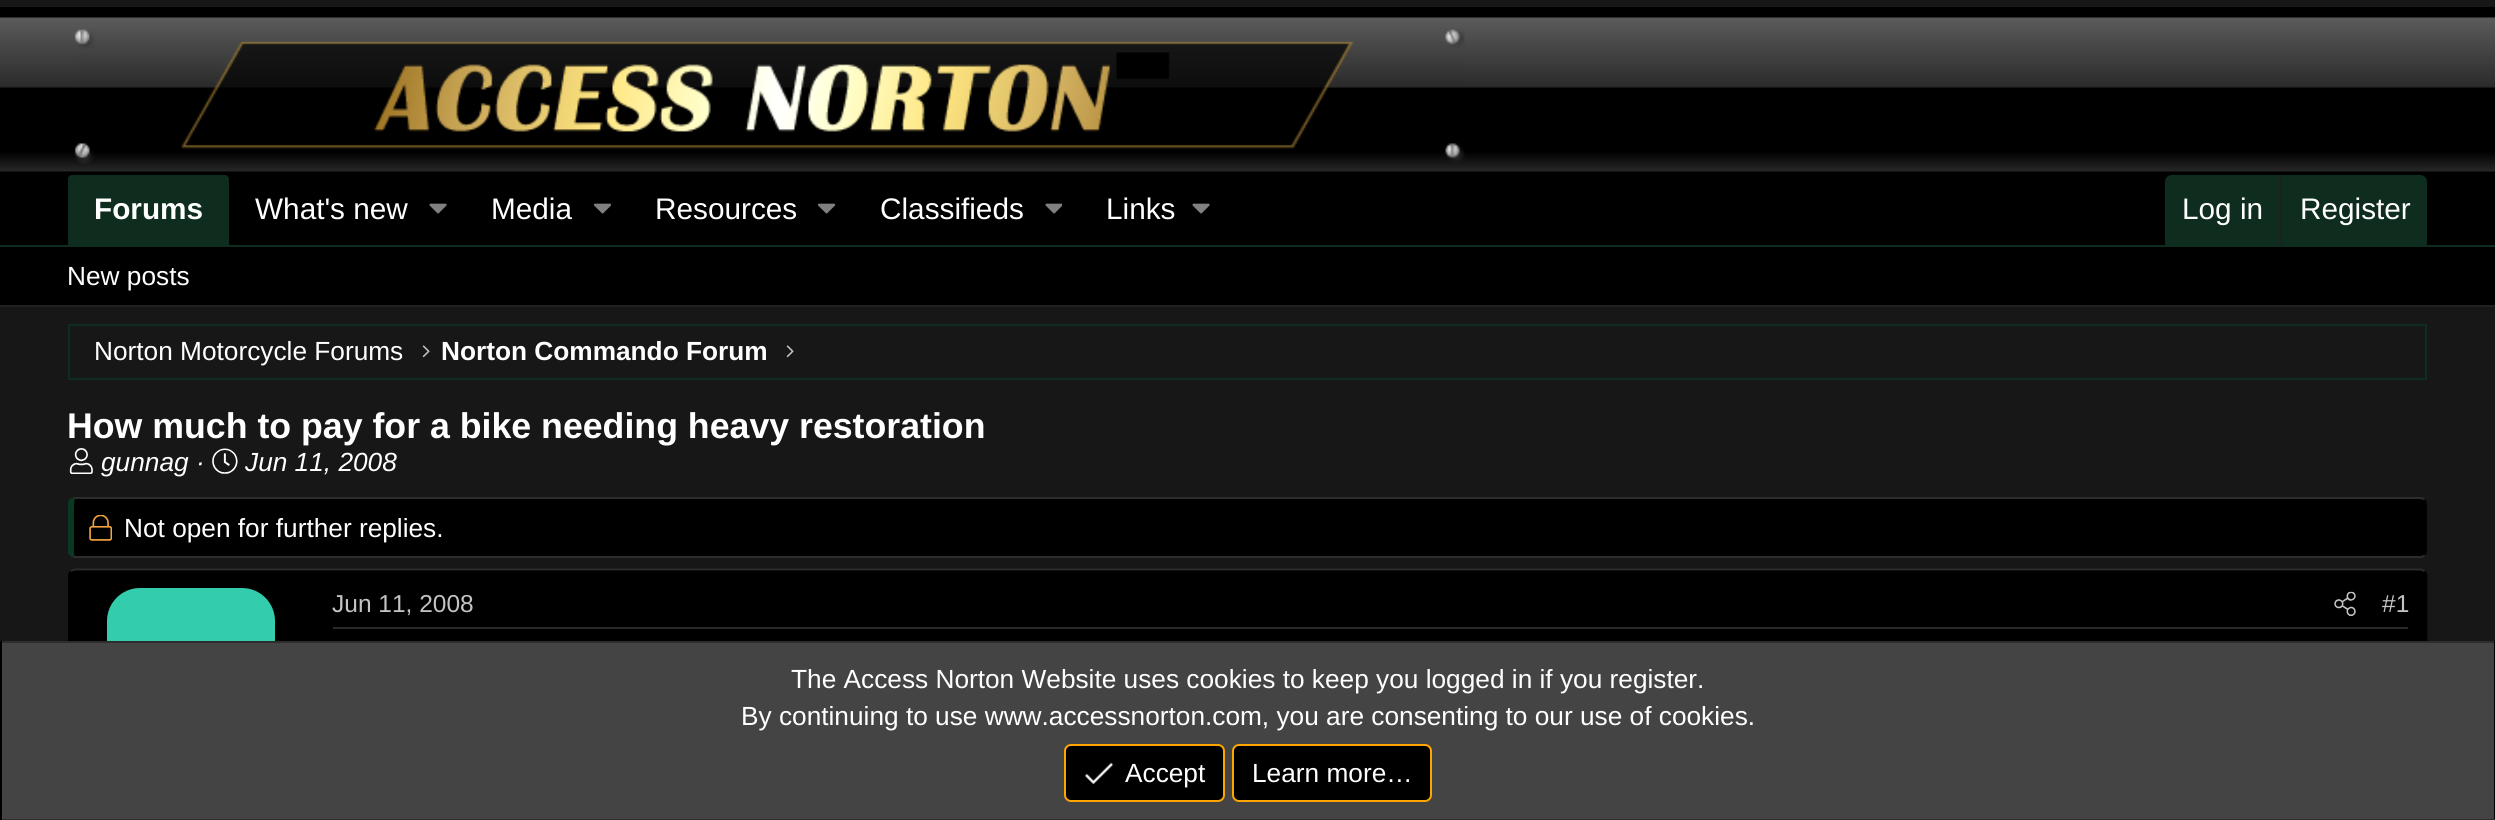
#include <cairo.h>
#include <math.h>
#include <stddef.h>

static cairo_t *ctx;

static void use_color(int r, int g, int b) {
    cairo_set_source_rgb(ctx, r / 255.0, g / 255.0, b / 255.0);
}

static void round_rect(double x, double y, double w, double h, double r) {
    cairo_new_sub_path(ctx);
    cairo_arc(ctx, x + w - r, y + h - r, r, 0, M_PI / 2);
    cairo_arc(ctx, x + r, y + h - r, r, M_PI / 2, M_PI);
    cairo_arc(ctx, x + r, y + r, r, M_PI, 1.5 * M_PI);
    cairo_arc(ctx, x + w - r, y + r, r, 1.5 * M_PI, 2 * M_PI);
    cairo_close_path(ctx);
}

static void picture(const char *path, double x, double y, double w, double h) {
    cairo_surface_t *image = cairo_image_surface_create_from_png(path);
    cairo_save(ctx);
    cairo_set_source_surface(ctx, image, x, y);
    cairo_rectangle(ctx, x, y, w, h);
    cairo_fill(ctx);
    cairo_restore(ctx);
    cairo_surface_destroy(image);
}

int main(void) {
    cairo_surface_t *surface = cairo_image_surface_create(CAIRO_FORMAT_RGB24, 2495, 820);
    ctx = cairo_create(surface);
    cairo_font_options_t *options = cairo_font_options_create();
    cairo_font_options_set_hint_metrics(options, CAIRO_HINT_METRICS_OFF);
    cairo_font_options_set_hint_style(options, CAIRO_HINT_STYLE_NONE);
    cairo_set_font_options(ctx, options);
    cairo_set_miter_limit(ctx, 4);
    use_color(23, 23, 23);
    cairo_paint(ctx);
    picture("img1.png", 0, 7, 2495, 168);
    picture("img2.png", 74, 29, 1391, 135);
    use_color(0, 0, 0);
    cairo_rectangle(ctx, 0, 175, 2495, 70);
    cairo_fill(ctx);
    use_color(14, 45, 31);
    cairo_new_path(ctx);
    cairo_move_to(ctx, 72, 175);
    cairo_line_to(ctx, 225, 175);
    cairo_curve_to(ctx, 227, 175, 229, 177, 229, 179);
    cairo_line_to(ctx, 229, 245);
    cairo_line_to(ctx, 68, 245);
    cairo_line_to(ctx, 68, 179);
    cairo_curve_to(ctx, 68, 177, 70, 175, 72, 175);
    cairo_close_path(ctx);
    cairo_fill(ctx);
    cairo_select_font_face(ctx, "Liberation Sans", CAIRO_FONT_SLANT_NORMAL, CAIRO_FONT_WEIGHT_BOLD);
    cairo_set_font_size(ctx, 29.75);
    use_color(255, 255, 255);
    cairo_move_to(ctx, 94, 219);
    cairo_show_text(ctx, "Forums");
    cairo_select_font_face(ctx, "Liberation Sans", CAIRO_FONT_SLANT_NORMAL, CAIRO_FONT_WEIGHT_NORMAL);
    cairo_move_to(ctx, 255, 219);
    cairo_show_text(ctx, "What's new");
    picture("img3.png", 429, 203, 18, 11);
    cairo_move_to(ctx, 491, 219);
    cairo_show_text(ctx, "Media");
    picture("img4.png", 594, 203, 17, 11);
    cairo_move_to(ctx, 655, 219);
    cairo_show_text(ctx, "Resources");
    picture("img5.png", 818, 203, 18, 11);
    cairo_move_to(ctx, 880, 219);
    cairo_show_text(ctx, "Classifieds");
    picture("img6.png", 1045, 203, 17, 11);
    cairo_move_to(ctx, 1106, 219);
    cairo_show_text(ctx, "Links");
    picture("img3.png", 1192, 203, 18, 11);
    use_color(14, 45, 31);
    cairo_new_path(ctx);
    cairo_move_to(ctx, 2172, 175);
    cairo_line_to(ctx, 2420, 175);
    cairo_curve_to(ctx, 2424, 175, 2427, 178, 2427, 182);
    cairo_line_to(ctx, 2427, 245);
    cairo_line_to(ctx, 2165, 245);
    cairo_line_to(ctx, 2165, 182);
    cairo_curve_to(ctx, 2165, 178, 2168, 175, 2172, 175);
    cairo_close_path(ctx);
    cairo_fill(ctx);
    use_color(255, 255, 255);
    cairo_move_to(ctx, 2182, 219);
    cairo_show_text(ctx, "Log in");
    use_color(33, 32, 32);
    cairo_rectangle(ctx, 2280, 175, 2, 70);
    cairo_fill(ctx);
    use_color(255, 255, 255);
    cairo_move_to(ctx, 2300, 219);
    cairo_show_text(ctx, "Register");
    use_color(0, 0, 0);
    cairo_rectangle(ctx, 0, 247, 2495, 58);
    cairo_fill(ctx);
    use_color(14, 45, 31);
    cairo_rectangle(ctx, 0, 245, 2495, 2);
    cairo_fill(ctx);
    use_color(33, 32, 32);
    cairo_rectangle(ctx, 0, 305, 2495, 2);
    cairo_fill(ctx);
    cairo_set_font_size(ctx, 26.25);
    use_color(255, 255, 255);
    cairo_move_to(ctx, 67, 285);
    cairo_show_text(ctx, "New posts");
    cairo_rectangle(ctx, 69, 325, 2357, 54);
    use_color(14, 45, 31);
    cairo_stroke(ctx);
    use_color(255, 255, 255);
    cairo_move_to(ctx, 94, 360);
    cairo_show_text(ctx, "Norton Motorcycle Forums");
    picture("img7.png", 422, 345, 8, 13);
    cairo_select_font_face(ctx, "Liberation Sans", CAIRO_FONT_SLANT_NORMAL, CAIRO_FONT_WEIGHT_BOLD);
    cairo_move_to(ctx, 441, 360);
    cairo_show_text(ctx, "Norton Commando Forum");
    picture("img7.png", 786, 345, 8, 13);
    cairo_set_font_size(ctx, 35.7);
    cairo_move_to(ctx, 67, 438);
    cairo_show_text(ctx, "How much to pay for a bike needing heavy restoration");
    picture("img8.png", 69, 448, 24, 26);
    cairo_select_font_face(ctx, "Liberation Sans", CAIRO_FONT_SLANT_ITALIC, CAIRO_FONT_WEIGHT_NORMAL);
    cairo_set_font_size(ctx, 26.25);
    cairo_move_to(ctx, 101, 471);
    cairo_show_text(ctx, "gunnag ·");
    picture("img9.png", 212, 448, 26, 26);
    cairo_move_to(ctx, 245, 471);
    cairo_show_text(ctx, "Jun 11, 2008");
    use_color(0, 0, 0);
    cairo_new_path(ctx);
    cairo_move_to(ctx, 75, 499);
    cairo_line_to(ctx, 2420, 499);
    cairo_curve_to(ctx, 2423, 499, 2426, 501, 2426, 504);
    cairo_line_to(ctx, 2426, 551);
    cairo_curve_to(ctx, 2426, 554, 2423, 556, 2420, 556);
    cairo_line_to(ctx, 75, 556);
    cairo_curve_to(ctx, 74, 556, 74, 554, 74, 551);
    cairo_line_to(ctx, 74, 504);
    cairo_curve_to(ctx, 74, 501, 74, 499, 75, 499);
    cairo_close_path(ctx);
    cairo_fill(ctx);
    use_color(46, 45, 45);
    cairo_new_path(ctx);
    cairo_move_to(ctx, 75, 497);
    cairo_line_to(ctx, 71, 498);
    cairo_line_to(ctx, 75, 499);
    cairo_line_to(ctx, 2420, 499);
    cairo_line_to(ctx, 2424, 500);
    cairo_line_to(ctx, 2425, 499);
    cairo_curve_to(ctx, 2424, 498, 2422, 497, 2420, 497);
    cairo_close_path(ctx);
    cairo_fill(ctx);
    use_color(0, 0, 0);
    cairo_new_path(ctx);
    cairo_move_to(ctx, 2425, 499);
    cairo_curve_to(ctx, 2426, 500, 2427, 502, 2427, 504);
    cairo_line_to(ctx, 2427, 551);
    cairo_curve_to(ctx, 2427, 553, 2426, 555, 2425, 556);
    cairo_line_to(ctx, 2424, 555);
    cairo_curve_to(ctx, 2425, 554, 2426, 553, 2426, 551);
    cairo_line_to(ctx, 2426, 504);
    cairo_curve_to(ctx, 2426, 502, 2425, 501, 2424, 500);
    cairo_close_path(ctx);
    cairo_fill(ctx);
    use_color(46, 45, 45);
    cairo_new_path(ctx);
    cairo_move_to(ctx, 2425, 556);
    cairo_curve_to(ctx, 2424, 557, 2422, 558, 2420, 558);
    cairo_line_to(ctx, 75, 558);
    cairo_line_to(ctx, 72, 557);
    cairo_line_to(ctx, 75, 556);
    cairo_line_to(ctx, 2420, 556);
    cairo_curve_to(ctx, 2421, 556, 2423, 556, 2424, 555);
    cairo_close_path(ctx);
    cairo_fill(ctx);
    use_color(10, 56, 35);
    cairo_new_path(ctx);
    cairo_move_to(ctx, 68, 502);
    cairo_curve_to(ctx, 69, 500, 70, 499, 71, 498);
    cairo_line_to(ctx, 75, 499);
    cairo_curve_to(ctx, 73, 500, 74, 532, 74, 535);
    cairo_curve_to(ctx, 74, 547, 73, 556, 75, 556);
    cairo_line_to(ctx, 72, 557);
    cairo_curve_to(ctx, 70, 556, 69, 555, 68, 553);
    cairo_close_path(ctx);
    cairo_fill(ctx);
    picture("img10.png", 89, 515, 23, 26);
    cairo_select_font_face(ctx, "Liberation Sans", CAIRO_FONT_SLANT_NORMAL, CAIRO_FONT_WEIGHT_NORMAL);
    use_color(255, 255, 255);
    cairo_move_to(ctx, 124, 537);
    cairo_show_text(ctx, "Not open for further replies.");
    use_color(0, 0, 0);
    round_rect(68, 569, 2359, 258, 7);
    cairo_fill(ctx);
    cairo_new_path(ctx);
    cairo_move_to(ctx, 71, 571.5);
    cairo_curve_to(ctx, 72, 570.5, 73.5, 569.5, 75, 569.5);
    cairo_line_to(ctx, 2420, 569.5);
    cairo_curve_to(ctx, 2422, 569.5, 2423.5, 570.5, 2424.5, 571.5);
    use_color(46, 45, 45);
    cairo_set_line_width(ctx, 1.8);
    cairo_stroke(ctx);
    cairo_new_path(ctx);
    cairo_move_to(ctx, 2424.5, 571.5);
    cairo_curve_to(ctx, 2425.5, 572.5, 2426.5, 574, 2426.5, 576);
    cairo_line_to(ctx, 2426.5, 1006);
    cairo_curve_to(ctx, 2426.5, 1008, 2425.5, 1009.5, 2424.5, 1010.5);
    use_color(0, 0, 0);
    cairo_stroke(ctx);
    cairo_new_path(ctx);
    cairo_move_to(ctx, 71, 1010.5);
    cairo_curve_to(ctx, 70, 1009.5, 69, 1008, 69, 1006);
    cairo_line_to(ctx, 69, 576);
    cairo_curve_to(ctx, 69, 574, 70, 572.5, 71, 571.5);
    cairo_stroke(ctx);
    cairo_new_path(ctx);
    cairo_move_to(ctx, 75, 571);
    cairo_line_to(ctx, 315, 571);
    cairo_line_to(ctx, 315, 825);
    cairo_line_to(ctx, 75, 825);
    cairo_curve_to(ctx, 72, 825, 70, 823, 70, 820);
    cairo_line_to(ctx, 70, 576);
    cairo_curve_to(ctx, 70, 573, 72, 571, 75, 571);
    cairo_close_path(ctx);
    cairo_fill(ctx);
    use_color(51, 204, 173);
    round_rect(107, 588, 168, 168, 33);
    cairo_fill(ctx);
    use_color(40, 40, 40);
    cairo_rectangle(ctx, 333, 627, 2075, 2);
    cairo_fill(ctx);
    cairo_set_font_size(ctx, 24.5);
    use_color(196, 194, 194);
    cairo_move_to(ctx, 332, 612);
    cairo_show_text(ctx, "Jun 11, 2008");
    picture("img11.png", 2334, 591, 22, 25);
    cairo_move_to(ctx, 2382, 612);
    cairo_show_text(ctx, "#1");
    use_color(68, 68, 68);
    cairo_rectangle(ctx, 2, 643, 2492, 176);
    cairo_fill(ctx);
    use_color(46, 45, 45);
    cairo_rectangle(ctx, 0, 641, 2495, 2);
    cairo_fill(ctx);
    use_color(0, 0, 0);
    cairo_rectangle(ctx, 2494, 641, 1, 179);
    cairo_fill(ctx);
    use_color(46, 45, 45);
    cairo_rectangle(ctx, 0, 819, 2495, 1);
    cairo_fill(ctx);
    use_color(0, 0, 0);
    cairo_rectangle(ctx, 0, 641, 2, 179);
    cairo_fill(ctx);
    cairo_set_font_size(ctx, 26.25);
    use_color(255, 255, 255);
    cairo_move_to(ctx, 791, 688);
    cairo_show_text(ctx, "The Access Norton Website uses cookies to keep you logged in if you register.");
    cairo_move_to(ctx, 741, 725);
    cairo_show_text(ctx, "By continuing to use www.accessnorton.com, you are consenting to our use of cookies.");
    use_color(0, 0, 0);
    round_rect(1065, 745, 159, 56, 6);
    cairo_fill_preserve(ctx);
    use_color(255, 165, 0);
    cairo_set_line_width(ctx, 2);
    cairo_stroke(ctx);
    picture("img12.png", 1085, 762, 29, 22);
    use_color(255, 255, 255);
    cairo_move_to(ctx, 1125, 782);
    cairo_show_text(ctx, "Accept");
    use_color(0, 0, 0);
    round_rect(1233, 745, 198, 56, 6);
    cairo_fill_preserve(ctx);
    use_color(255, 165, 0);
    cairo_stroke(ctx);
    use_color(255, 255, 255);
    cairo_move_to(ctx, 1252, 782);
    cairo_show_text(ctx, "Learn more…");
    cairo_surface_write_to_png(surface, "result.png");
    cairo_font_options_destroy(options);
    cairo_destroy(ctx);
    cairo_surface_destroy(surface);
    return 0;
}
